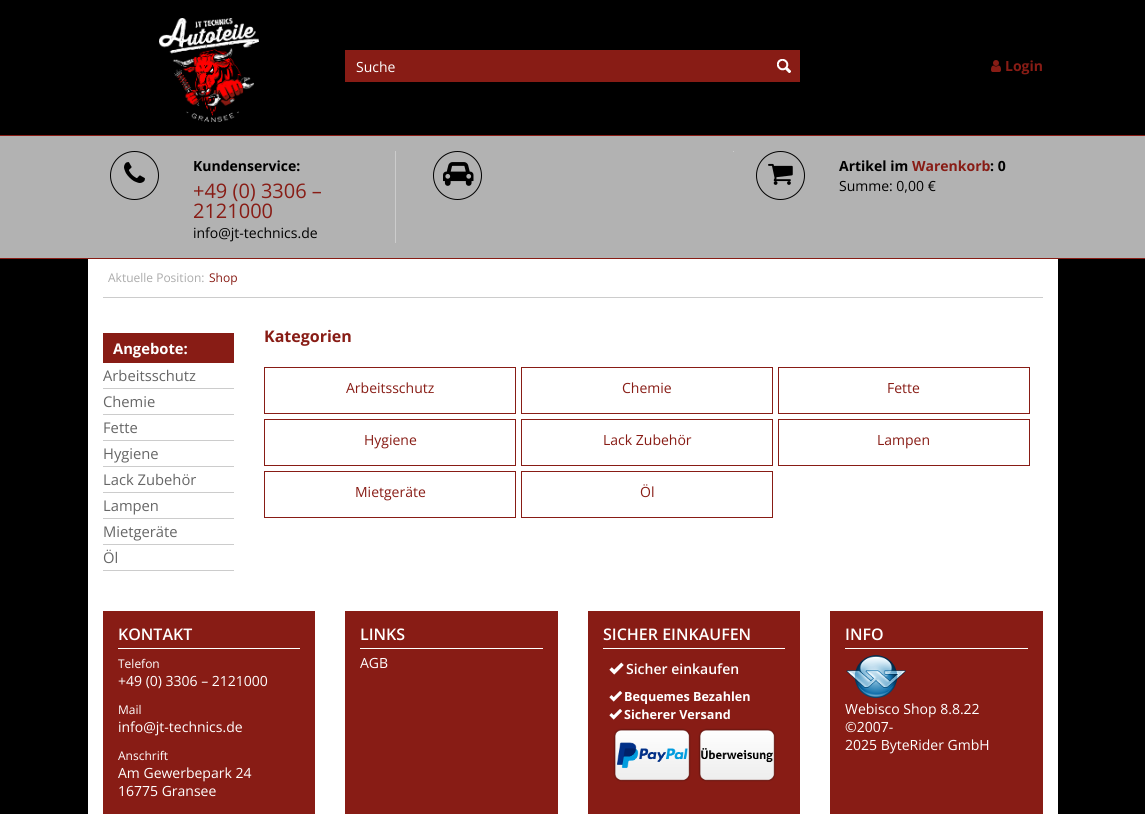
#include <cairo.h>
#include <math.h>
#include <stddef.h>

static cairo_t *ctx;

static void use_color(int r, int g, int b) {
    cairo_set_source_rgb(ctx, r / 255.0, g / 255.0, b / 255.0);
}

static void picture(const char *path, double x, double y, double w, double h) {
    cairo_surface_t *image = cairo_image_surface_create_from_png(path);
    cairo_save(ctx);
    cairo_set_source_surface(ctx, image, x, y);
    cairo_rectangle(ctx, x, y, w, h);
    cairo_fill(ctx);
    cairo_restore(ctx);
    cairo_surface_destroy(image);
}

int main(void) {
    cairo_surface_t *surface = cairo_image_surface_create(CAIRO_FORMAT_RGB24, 1145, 814);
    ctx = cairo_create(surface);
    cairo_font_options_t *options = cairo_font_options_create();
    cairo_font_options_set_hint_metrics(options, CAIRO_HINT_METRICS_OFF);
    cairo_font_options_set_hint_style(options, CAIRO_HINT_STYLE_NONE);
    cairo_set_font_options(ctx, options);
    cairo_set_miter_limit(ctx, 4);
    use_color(0, 0, 0);
    cairo_paint(ctx);
    use_color(136, 28, 21);
    cairo_rectangle(ctx, 0, 135, 1145, 1);
    cairo_fill(ctx);
    picture("img1.png", 159, 18, 100, 104);
    cairo_rectangle(ctx, 345, 50, 455, 32);
    cairo_fill(ctx);
    cairo_select_font_face(ctx, "Open Sans", CAIRO_FONT_SLANT_NORMAL, CAIRO_FONT_WEIGHT_NORMAL);
    cairo_set_font_size(ctx, 14);
    use_color(255, 255, 255);
    cairo_move_to(ctx, 356, 72);
    cairo_show_text(ctx, "Suche");
    picture("img2.png", 777, 59, 14, 14);
    picture("img3.png", 991, 60, 10, 12);
    cairo_select_font_face(ctx, "Open Sans", CAIRO_FONT_SLANT_NORMAL, CAIRO_FONT_WEIGHT_BOLD);
    use_color(136, 28, 21);
    cairo_move_to(ctx, 1005, 71);
    cairo_show_text(ctx, "Login");
    use_color(178, 178, 178);
    cairo_rectangle(ctx, 0, 136, 1145, 122);
    cairo_fill(ctx);
    use_color(136, 28, 21);
    cairo_rectangle(ctx, 0, 258, 1145, 1);
    cairo_fill(ctx);
    cairo_arc(ctx, 134.5, 175.5, 24, 0, 2 * M_PI);
    use_color(0, 0, 0);
    cairo_set_line_width(ctx, 1);
    cairo_stroke(ctx);
    picture("img4.png", 124, 162, 21, 21);
    use_color(204, 204, 204);
    cairo_rectangle(ctx, 395, 151, 1, 92);
    cairo_fill(ctx);
    use_color(0, 0, 0);
    cairo_move_to(ctx, 193, 171);
    cairo_show_text(ctx, "Kundenservice:");
    cairo_select_font_face(ctx, "Open Sans", CAIRO_FONT_SLANT_NORMAL, CAIRO_FONT_WEIGHT_NORMAL);
    cairo_set_font_size(ctx, 20);
    use_color(136, 28, 21);
    cairo_move_to(ctx, 193, 198);
    cairo_show_text(ctx, "+49 (0) 3306 –");
    cairo_move_to(ctx, 193, 218);
    cairo_show_text(ctx, "2121000");
    cairo_set_font_size(ctx, 14);
    use_color(0, 0, 0);
    cairo_move_to(ctx, 193, 238);
    cairo_show_text(ctx, "info@jt-technics.de");
    use_color(204, 204, 204);
    cairo_rectangle(ctx, 733, 151, 1, 1);
    cairo_fill(ctx);
    cairo_arc(ctx, 457.5, 175.5, 24, 0, 2 * M_PI);
    use_color(0, 0, 0);
    cairo_stroke(ctx);
    picture("img5.png", 443, 162, 31, 24);
    cairo_arc(ctx, 780.5, 175.5, 24, 0, 2 * M_PI);
    cairo_stroke(ctx);
    picture("img6.png", 768, 163, 25, 22);
    cairo_select_font_face(ctx, "Open Sans", CAIRO_FONT_SLANT_NORMAL, CAIRO_FONT_WEIGHT_BOLD);
    cairo_move_to(ctx, 839, 171);
    cairo_show_text(ctx, "Artikel im");
    use_color(136, 28, 21);
    cairo_move_to(ctx, 912, 171);
    cairo_show_text(ctx, "Warenkorb");
    use_color(0, 0, 0);
    cairo_move_to(ctx, 990, 171);
    cairo_show_text(ctx, ": 0");
    cairo_select_font_face(ctx, "Open Sans", CAIRO_FONT_SLANT_NORMAL, CAIRO_FONT_WEIGHT_NORMAL);
    cairo_move_to(ctx, 839, 191);
    cairo_show_text(ctx, "Summe: 0,00 €");
    use_color(255, 255, 255);
    cairo_rectangle(ctx, 88, 259, 970, 555);
    cairo_fill(ctx);
    use_color(204, 204, 204);
    cairo_rectangle(ctx, 103, 297, 940, 1);
    cairo_fill(ctx);
    cairo_set_font_size(ctx, 12);
    use_color(171, 171, 171);
    cairo_move_to(ctx, 108, 282);
    cairo_show_text(ctx, "Aktuelle Position:");
    use_color(136, 28, 21);
    cairo_move_to(ctx, 209, 282);
    cairo_show_text(ctx, "Shop");
    cairo_rectangle(ctx, 103, 333, 131, 30);
    cairo_fill(ctx);
    cairo_select_font_face(ctx, "Open Sans", CAIRO_FONT_SLANT_NORMAL, CAIRO_FONT_WEIGHT_BOLD);
    cairo_set_font_size(ctx, 14.75);
    use_color(255, 255, 255);
    cairo_move_to(ctx, 113, 354);
    cairo_show_text(ctx, "Angebote:");
    use_color(204, 204, 204);
    cairo_rectangle(ctx, 103, 388, 131, 1);
    cairo_fill(ctx);
    cairo_select_font_face(ctx, "Open Sans", CAIRO_FONT_SLANT_NORMAL, CAIRO_FONT_WEIGHT_NORMAL);
    use_color(102, 102, 102);
    cairo_move_to(ctx, 103, 381);
    cairo_show_text(ctx, "Arbeitsschutz");
    use_color(204, 204, 204);
    cairo_rectangle(ctx, 103, 414, 131, 1);
    cairo_fill(ctx);
    use_color(102, 102, 102);
    cairo_move_to(ctx, 103, 407);
    cairo_show_text(ctx, "Chemie");
    use_color(204, 204, 204);
    cairo_rectangle(ctx, 103, 440, 131, 1);
    cairo_fill(ctx);
    use_color(102, 102, 102);
    cairo_move_to(ctx, 103, 433);
    cairo_show_text(ctx, "Fette");
    use_color(204, 204, 204);
    cairo_rectangle(ctx, 103, 466, 131, 1);
    cairo_fill(ctx);
    use_color(102, 102, 102);
    cairo_move_to(ctx, 103, 459);
    cairo_show_text(ctx, "Hygiene");
    use_color(204, 204, 204);
    cairo_rectangle(ctx, 103, 492, 131, 1);
    cairo_fill(ctx);
    use_color(102, 102, 102);
    cairo_move_to(ctx, 103, 485);
    cairo_show_text(ctx, "Lack Zubehör");
    use_color(204, 204, 204);
    cairo_rectangle(ctx, 103, 518, 131, 1);
    cairo_fill(ctx);
    use_color(102, 102, 102);
    cairo_move_to(ctx, 103, 511);
    cairo_show_text(ctx, "Lampen");
    use_color(204, 204, 204);
    cairo_rectangle(ctx, 103, 544, 131, 1);
    cairo_fill(ctx);
    use_color(102, 102, 102);
    cairo_move_to(ctx, 103, 537);
    cairo_show_text(ctx, "Mietgeräte");
    use_color(204, 204, 204);
    cairo_rectangle(ctx, 103, 570, 131, 1);
    cairo_fill(ctx);
    use_color(102, 102, 102);
    cairo_move_to(ctx, 103, 563);
    cairo_show_text(ctx, "Öl");
    cairo_select_font_face(ctx, "Open Sans", CAIRO_FONT_SLANT_NORMAL, CAIRO_FONT_WEIGHT_BOLD);
    cairo_set_font_size(ctx, 16);
    use_color(136, 28, 21);
    cairo_move_to(ctx, 264, 342);
    cairo_show_text(ctx, "Kategorien");
    cairo_rectangle(ctx, 264.5, 367.5, 251, 46);
    cairo_stroke(ctx);
    cairo_select_font_face(ctx, "Open Sans", CAIRO_FONT_SLANT_NORMAL, CAIRO_FONT_WEIGHT_NORMAL);
    cairo_set_font_size(ctx, 14);
    cairo_move_to(ctx, 346, 393);
    cairo_show_text(ctx, "Arbeitsschutz");
    cairo_rectangle(ctx, 521.5, 367.5, 251, 46);
    cairo_stroke(ctx);
    cairo_move_to(ctx, 622, 393);
    cairo_show_text(ctx, "Chemie");
    cairo_rectangle(ctx, 778.5, 367.5, 251, 46);
    cairo_stroke(ctx);
    cairo_move_to(ctx, 887, 393);
    cairo_show_text(ctx, "Fette");
    cairo_rectangle(ctx, 264.5, 419.5, 251, 46);
    cairo_stroke(ctx);
    cairo_move_to(ctx, 364, 445);
    cairo_show_text(ctx, "Hygiene");
    cairo_rectangle(ctx, 521.5, 419.5, 251, 46);
    cairo_stroke(ctx);
    cairo_move_to(ctx, 603, 445);
    cairo_show_text(ctx, "Lack Zubehör");
    cairo_rectangle(ctx, 778.5, 419.5, 251, 46);
    cairo_stroke(ctx);
    cairo_move_to(ctx, 877, 445);
    cairo_show_text(ctx, "Lampen");
    cairo_rectangle(ctx, 264.5, 471.5, 251, 46);
    cairo_stroke(ctx);
    cairo_move_to(ctx, 355, 497);
    cairo_show_text(ctx, "Mietgeräte");
    cairo_rectangle(ctx, 521.5, 471.5, 251, 46);
    cairo_stroke(ctx);
    cairo_move_to(ctx, 640, 497);
    cairo_show_text(ctx, "Öl");
    cairo_rectangle(ctx, 103, 611, 212, 203);
    cairo_fill(ctx);
    use_color(255, 255, 255);
    cairo_rectangle(ctx, 118, 648, 182, 1);
    cairo_fill(ctx);
    cairo_select_font_face(ctx, "Open Sans SemiBold", CAIRO_FONT_SLANT_NORMAL, CAIRO_FONT_WEIGHT_NORMAL);
    cairo_set_font_size(ctx, 16);
    cairo_move_to(ctx, 118, 640);
    cairo_show_text(ctx, "KONTAKT");
    cairo_select_font_face(ctx, "Open Sans", CAIRO_FONT_SLANT_NORMAL, CAIRO_FONT_WEIGHT_NORMAL);
    cairo_set_font_size(ctx, 12);
    cairo_move_to(ctx, 118, 668);
    cairo_show_text(ctx, "Telefon");
    cairo_set_font_size(ctx, 14);
    cairo_move_to(ctx, 118, 686);
    cairo_show_text(ctx, "+49 (0) 3306 – 2121000");
    cairo_set_font_size(ctx, 12);
    cairo_move_to(ctx, 118, 714);
    cairo_show_text(ctx, "Mail");
    cairo_set_font_size(ctx, 14);
    cairo_move_to(ctx, 118, 732);
    cairo_show_text(ctx, "info@jt-technics.de");
    cairo_set_font_size(ctx, 12);
    cairo_move_to(ctx, 118, 760);
    cairo_show_text(ctx, "Anschrift");
    cairo_set_font_size(ctx, 14);
    cairo_move_to(ctx, 118, 778);
    cairo_show_text(ctx, "Am Gewerbepark 24");
    cairo_move_to(ctx, 118, 796);
    cairo_show_text(ctx, "16775 Gransee");
    use_color(136, 28, 21);
    cairo_rectangle(ctx, 345, 611, 213, 203);
    cairo_fill(ctx);
    use_color(255, 255, 255);
    cairo_rectangle(ctx, 360, 648, 183, 1);
    cairo_fill(ctx);
    cairo_select_font_face(ctx, "Open Sans SemiBold", CAIRO_FONT_SLANT_NORMAL, CAIRO_FONT_WEIGHT_NORMAL);
    cairo_set_font_size(ctx, 16);
    cairo_move_to(ctx, 360, 640);
    cairo_show_text(ctx, "LINKS");
    cairo_select_font_face(ctx, "Open Sans", CAIRO_FONT_SLANT_NORMAL, CAIRO_FONT_WEIGHT_NORMAL);
    cairo_set_font_size(ctx, 14);
    cairo_move_to(ctx, 360, 668);
    cairo_show_text(ctx, "AGB");
    use_color(136, 28, 21);
    cairo_rectangle(ctx, 588, 611, 212, 203);
    cairo_fill(ctx);
    use_color(255, 255, 255);
    cairo_rectangle(ctx, 603, 648, 182, 1);
    cairo_fill(ctx);
    cairo_select_font_face(ctx, "Open Sans SemiBold", CAIRO_FONT_SLANT_NORMAL, CAIRO_FONT_WEIGHT_NORMAL);
    cairo_set_font_size(ctx, 16);
    cairo_move_to(ctx, 603, 640);
    cairo_show_text(ctx, "SICHER EINKAUFEN");
    picture("img7.png", 609, 662, 15, 13);
    cairo_set_font_size(ctx, 14);
    cairo_move_to(ctx, 626, 674);
    cairo_show_text(ctx, "Sicher einkaufen");
    picture("img8.png", 609, 691, 14, 11);
    cairo_select_font_face(ctx, "Open Sans", CAIRO_FONT_SLANT_NORMAL, CAIRO_FONT_WEIGHT_BOLD);
    cairo_set_font_size(ctx, 12.6);
    cairo_move_to(ctx, 624, 701);
    cairo_show_text(ctx, "Bequemes Bezahlen");
    picture("img8.png", 609, 709, 14, 11);
    cairo_move_to(ctx, 624, 719);
    cairo_show_text(ctx, "Sicherer Versand");
    picture("img9.png", 613, 728, 78, 54);
    picture("img10.png", 698, 728, 78, 54);
    use_color(136, 28, 21);
    cairo_rectangle(ctx, 830, 611, 213, 203);
    cairo_fill(ctx);
    use_color(255, 255, 255);
    cairo_rectangle(ctx, 845, 648, 183, 1);
    cairo_fill(ctx);
    cairo_select_font_face(ctx, "Open Sans SemiBold", CAIRO_FONT_SLANT_NORMAL, CAIRO_FONT_WEIGHT_NORMAL);
    cairo_set_font_size(ctx, 16);
    cairo_move_to(ctx, 845, 640);
    cairo_show_text(ctx, "INFO");
    picture("img11.png", 846, 655, 60, 43);
    cairo_select_font_face(ctx, "Open Sans", CAIRO_FONT_SLANT_NORMAL, CAIRO_FONT_WEIGHT_NORMAL);
    cairo_set_font_size(ctx, 14);
    cairo_move_to(ctx, 845, 714);
    cairo_show_text(ctx, "Webisco Shop 8.8.22");
    cairo_move_to(ctx, 845, 732);
    cairo_show_text(ctx, "©2007-");
    cairo_move_to(ctx, 845, 750);
    cairo_show_text(ctx, "2025 ByteRider GmbH");
    cairo_surface_write_to_png(surface, "result.png");
    cairo_font_options_destroy(options);
    cairo_destroy(ctx);
    cairo_surface_destroy(surface);
    return 0;
}
